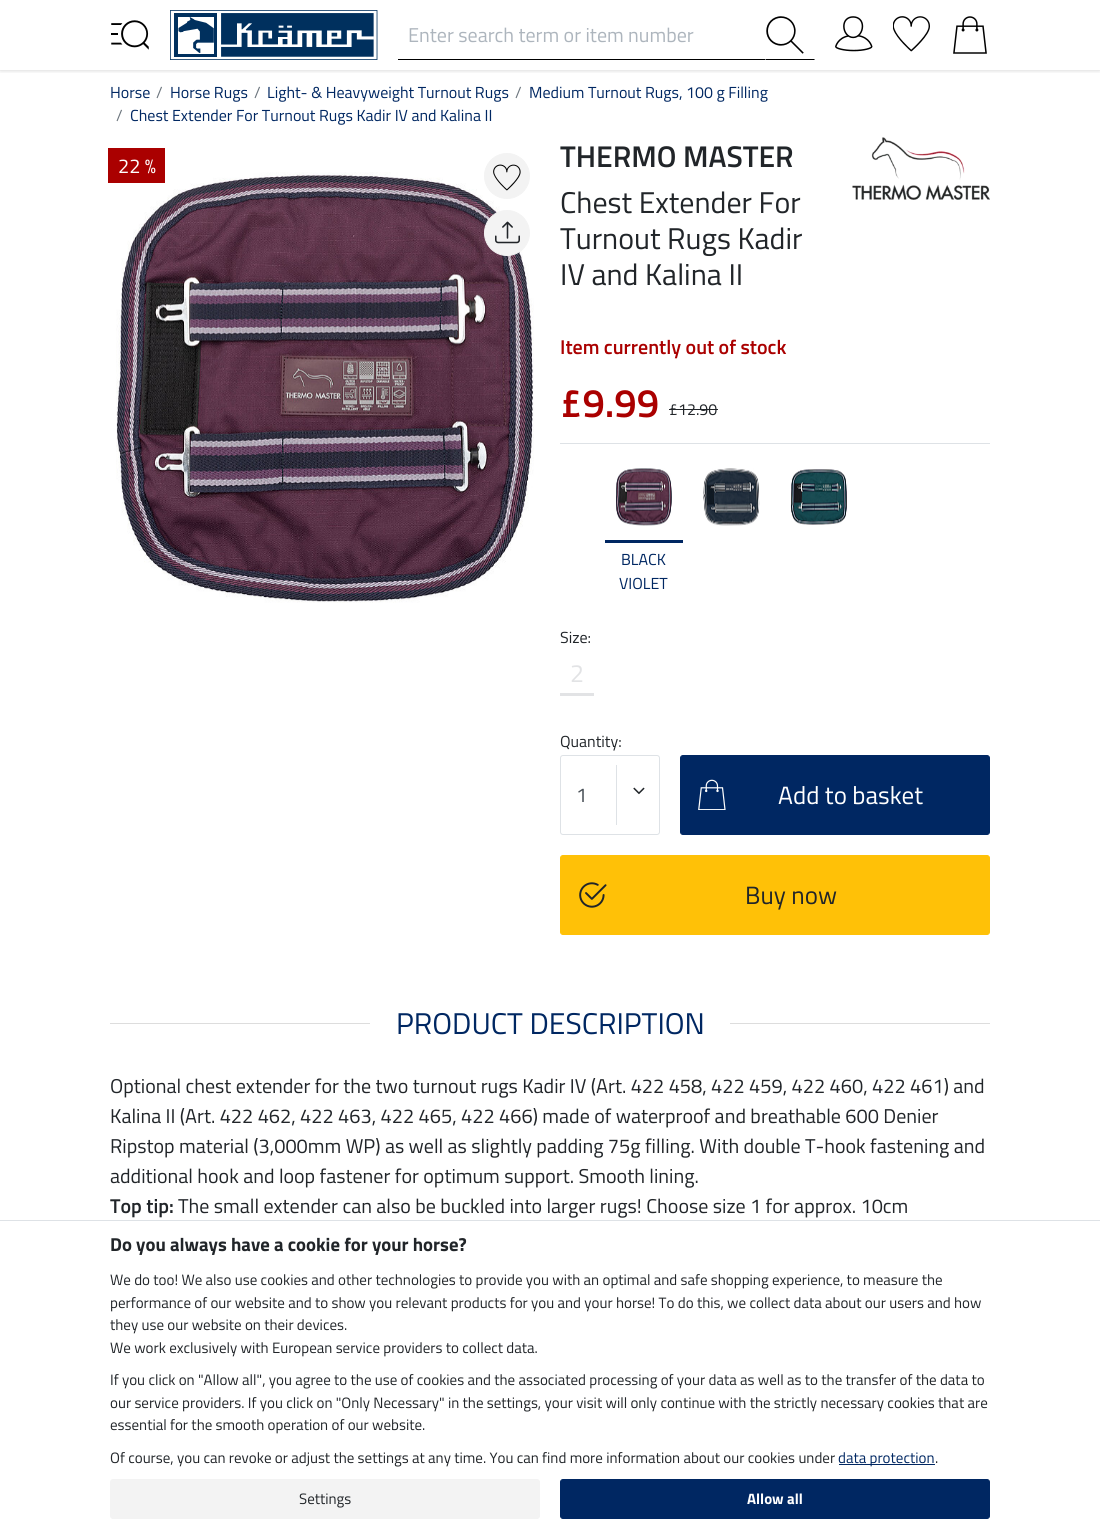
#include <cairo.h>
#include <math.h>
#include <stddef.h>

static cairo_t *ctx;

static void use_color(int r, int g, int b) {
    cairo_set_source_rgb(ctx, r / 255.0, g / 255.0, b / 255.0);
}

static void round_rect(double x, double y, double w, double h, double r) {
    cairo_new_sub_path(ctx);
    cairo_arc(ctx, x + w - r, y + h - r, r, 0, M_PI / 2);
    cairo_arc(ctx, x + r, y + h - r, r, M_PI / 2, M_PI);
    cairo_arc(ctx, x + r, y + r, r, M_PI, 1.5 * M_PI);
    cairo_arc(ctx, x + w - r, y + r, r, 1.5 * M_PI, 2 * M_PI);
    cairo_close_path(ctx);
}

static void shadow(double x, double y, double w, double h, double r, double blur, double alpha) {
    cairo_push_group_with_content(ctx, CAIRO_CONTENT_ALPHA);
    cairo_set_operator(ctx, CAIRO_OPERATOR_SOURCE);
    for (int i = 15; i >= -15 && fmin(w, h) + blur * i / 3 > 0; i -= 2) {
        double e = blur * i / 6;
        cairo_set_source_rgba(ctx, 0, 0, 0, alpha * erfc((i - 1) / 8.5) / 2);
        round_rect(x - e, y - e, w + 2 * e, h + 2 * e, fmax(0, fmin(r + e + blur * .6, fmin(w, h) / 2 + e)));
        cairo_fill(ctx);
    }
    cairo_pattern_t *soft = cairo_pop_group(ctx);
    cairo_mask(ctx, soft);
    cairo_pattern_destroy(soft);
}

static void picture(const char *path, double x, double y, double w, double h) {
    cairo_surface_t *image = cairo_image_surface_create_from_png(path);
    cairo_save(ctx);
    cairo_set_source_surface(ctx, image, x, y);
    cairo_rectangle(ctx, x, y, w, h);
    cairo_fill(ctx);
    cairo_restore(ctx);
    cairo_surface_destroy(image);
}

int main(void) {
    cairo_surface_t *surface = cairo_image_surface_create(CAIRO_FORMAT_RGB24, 1100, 1528);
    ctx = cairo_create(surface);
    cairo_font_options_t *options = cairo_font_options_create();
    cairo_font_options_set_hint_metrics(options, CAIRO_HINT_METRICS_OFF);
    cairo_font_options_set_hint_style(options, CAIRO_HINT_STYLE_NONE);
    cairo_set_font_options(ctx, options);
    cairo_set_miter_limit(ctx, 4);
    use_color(255, 255, 255);
    cairo_paint(ctx);
    cairo_save(ctx);
    cairo_rectangle(ctx, 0, 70, 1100, 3);
    cairo_clip(ctx);
    use_color(0, 0, 0);
    shadow(0, 0, 1100, 70, 0, 2.5, 0.2);
    cairo_restore(ctx);
    picture("img1.png", 111, 20, 38, 30);
    picture("img2.png", 170, 10, 208, 50);
    use_color(0, 0, 0);
    cairo_rectangle(ctx, 398, 59, 368, 1);
    cairo_fill(ctx);
    cairo_select_font_face(ctx, "Titillium Web", CAIRO_FONT_SLANT_NORMAL, CAIRO_FONT_WEIGHT_NORMAL);
    cairo_set_font_size(ctx, 20);
    use_color(173, 181, 189);
    cairo_move_to(ctx, 408, 42);
    cairo_show_text(ctx, "Enter search term or item number");
    use_color(255, 255, 255);
    cairo_rectangle(ctx, 765, 59, 1, 1);
    cairo_fill(ctx);
    use_color(0, 0, 0);
    cairo_new_path(ctx);
    cairo_move_to(ctx, 815, 60);
    cairo_line_to(ctx, 765, 60);
    cairo_line_to(ctx, 766, 59);
    cairo_line_to(ctx, 814, 59);
    cairo_close_path(ctx);
    cairo_fill(ctx);
    picture("img3.png", 766, 16, 38, 38);
    picture("img4.png", 835, 16, 38, 36);
    picture("img5.png", 893, 16, 37, 36);
    picture("img6.png", 953, 16, 34, 38);
    cairo_set_font_size(ctx, 16);
    use_color(0, 39, 98);
    cairo_move_to(ctx, 110, 98);
    cairo_show_text(ctx, "Horse");
    use_color(108, 117, 125);
    cairo_move_to(ctx, 156, 98);
    cairo_show_text(ctx, "/");
    use_color(0, 39, 98);
    cairo_move_to(ctx, 170, 98);
    cairo_show_text(ctx, "Horse Rugs");
    use_color(108, 117, 125);
    cairo_move_to(ctx, 254, 98);
    cairo_show_text(ctx, "/");
    use_color(0, 39, 98);
    cairo_move_to(ctx, 267, 98);
    cairo_show_text(ctx, "Light- & Heavyweight Turnout Rugs");
    use_color(108, 117, 125);
    cairo_move_to(ctx, 515, 98);
    cairo_show_text(ctx, "/");
    use_color(0, 39, 98);
    cairo_move_to(ctx, 529, 98);
    cairo_show_text(ctx, "Medium Turnout Rugs, 100 g Filling");
    use_color(108, 117, 125);
    cairo_move_to(ctx, 116, 121);
    cairo_show_text(ctx, "/");
    use_color(0, 39, 98);
    cairo_move_to(ctx, 130, 121);
    cairo_show_text(ctx, "Chest Extender For Turnout Rugs Kadir IV and Kalina II");
    picture("img8.png", 116, 172, 418, 431);
    use_color(170, 0, 0);
    cairo_rectangle(ctx, 108, 148, 57, 35);
    cairo_fill(ctx);
    cairo_set_font_size(ctx, 20);
    use_color(255, 255, 255);
    cairo_move_to(ctx, 118, 173);
    cairo_show_text(ctx, "22 %");
    use_color(243, 243, 243);
    cairo_new_path(ctx);
    cairo_arc(ctx, 507, 176, 22.5, 0, 2 * M_PI);
    cairo_fill_preserve(ctx);
    cairo_set_line_width(ctx, 1);
    cairo_stroke(ctx);
    picture("img7.png", 493, 164, 28, 27);
    cairo_arc(ctx, 507, 233, 22.5, 0, 2 * M_PI);
    cairo_fill_preserve(ctx);
    cairo_stroke(ctx);
    picture("img9.png", 495, 221, 25, 23);
    cairo_select_font_face(ctx, "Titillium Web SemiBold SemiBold", CAIRO_FONT_SLANT_NORMAL, CAIRO_FONT_WEIGHT_NORMAL);
    cairo_set_font_size(ctx, 30);
    use_color(33, 37, 41);
    cairo_move_to(ctx, 560, 167);
    cairo_show_text(ctx, "THERMO MASTER");
    cairo_select_font_face(ctx, "Titillium Web", CAIRO_FONT_SLANT_NORMAL, CAIRO_FONT_WEIGHT_NORMAL);
    cairo_move_to(ctx, 560, 213);
    cairo_show_text(ctx, "Chest Extender For");
    cairo_move_to(ctx, 560, 249);
    cairo_show_text(ctx, "Turnout Rugs Kadir");
    cairo_move_to(ctx, 560, 285);
    cairo_show_text(ctx, "IV and Kalina II");
    picture("img10.png", 852, 137, 138, 63);
    cairo_select_font_face(ctx, "Titillium Web SemiBold SemiBold", CAIRO_FONT_SLANT_NORMAL, CAIRO_FONT_WEIGHT_NORMAL);
    cairo_set_font_size(ctx, 20);
    use_color(170, 0, 0);
    cairo_move_to(ctx, 560, 354);
    cairo_show_text(ctx, "Item currently out of stock");
    cairo_set_font_size(ctx, 40);
    cairo_move_to(ctx, 560, 417);
    cairo_show_text(ctx, "£9.99");
    cairo_select_font_face(ctx, "Titillium Web", CAIRO_FONT_SLANT_NORMAL, CAIRO_FONT_WEIGHT_NORMAL);
    cairo_set_font_size(ctx, 16);
    use_color(33, 37, 41);
    cairo_move_to(ctx, 669, 415);
    cairo_show_text(ctx, "£12.90");
    cairo_rectangle(ctx, 669, 409, 49, 1);
    cairo_fill(ctx);
    use_color(222, 226, 230);
    cairo_rectangle(ctx, 560, 443, 430, 1);
    cairo_fill(ctx);
    picture("img11.png", 703, 468, 57, 58);
    picture("img12.png", 791, 469, 57, 56);
    picture("img13.png", 616, 468, 56, 58);
    use_color(0, 39, 98);
    cairo_rectangle(ctx, 605, 540, 78, 3);
    cairo_fill(ctx);
    cairo_move_to(ctx, 621, 565);
    cairo_show_text(ctx, "BLACK");
    cairo_move_to(ctx, 619, 589);
    cairo_show_text(ctx, "VIOLET");
    use_color(33, 37, 41);
    cairo_move_to(ctx, 560, 643);
    cairo_show_text(ctx, "Size:");
    use_color(226, 227, 229);
    cairo_rectangle(ctx, 560, 693, 34, 3);
    cairo_fill(ctx);
    cairo_set_font_size(ctx, 25);
    cairo_move_to(ctx, 570, 682);
    cairo_show_text(ctx, "2");
    cairo_set_font_size(ctx, 16);
    use_color(33, 37, 41);
    cairo_move_to(ctx, 560, 747);
    cairo_show_text(ctx, "Quantity:");
    round_rect(560.5, 755.5, 99, 79, 2.5);
    use_color(222, 226, 230);
    cairo_stroke(ctx);
    cairo_set_font_size(ctx, 20);
    use_color(73, 80, 87);
    cairo_move_to(ctx, 576, 802);
    cairo_show_text(ctx, "1");
    use_color(222, 226, 230);
    cairo_rectangle(ctx, 616, 765, 1, 60);
    cairo_fill(ctx);
    picture("img14.png", 633, 787, 12, 8);
    use_color(0, 39, 98);
    round_rect(680.5, 755.5, 309, 79, 2.5);
    cairo_fill_preserve(ctx);
    cairo_stroke(ctx);
    picture("img15.png", 698, 779, 28, 31);
    cairo_set_font_size(ctx, 25);
    use_color(255, 255, 255);
    cairo_move_to(ctx, 778, 804);
    cairo_show_text(ctx, "Add to basket");
    use_color(255, 193, 7);
    round_rect(560.5, 855.5, 429, 79, 2.5);
    cairo_fill_preserve(ctx);
    cairo_stroke(ctx);
    picture("img16.png", 579, 882, 28, 26);
    use_color(33, 37, 41);
    cairo_move_to(ctx, 745, 904);
    cairo_show_text(ctx, "Buy now");
    use_color(221, 221, 221);
    cairo_rectangle(ctx, 110, 1023, 260, 1);
    cairo_fill(ctx);
    cairo_set_font_size(ctx, 30);
    use_color(0, 39, 98);
    cairo_move_to(ctx, 396, 1034);
    cairo_show_text(ctx, "PRODUCT DESCRIPTION");
    use_color(221, 221, 221);
    cairo_rectangle(ctx, 730, 1023, 260, 1);
    cairo_fill(ctx);
    cairo_set_font_size(ctx, 20);
    use_color(33, 37, 41);
    cairo_move_to(ctx, 110, 1093);
    cairo_show_text(ctx, "Optional chest extender for the two turnout rugs Kadir IV (Art. 422 458, 422 459, 422 460, 422 461) and");
    cairo_move_to(ctx, 110, 1123);
    cairo_show_text(ctx, "Kalina II (Art. 422 462, 422 463, 422 465, 422 466) made of waterproof and breathable 600 Denier");
    cairo_move_to(ctx, 110, 1153);
    cairo_show_text(ctx, "Ripstop material (3,000mm WP) as well as slightly padding 75g filling. With double T-hook fastening and");
    cairo_move_to(ctx, 110, 1183);
    cairo_show_text(ctx, "additional hook and loop fastener for optimum support. Smooth lining.");
    cairo_select_font_face(ctx, "Titillium Web SemiBold SemiBold", CAIRO_FONT_SLANT_NORMAL, CAIRO_FONT_WEIGHT_NORMAL);
    cairo_move_to(ctx, 110, 1213);
    cairo_show_text(ctx, "Top tip:");
    cairo_select_font_face(ctx, "Titillium Web", CAIRO_FONT_SLANT_NORMAL, CAIRO_FONT_WEIGHT_NORMAL);
    cairo_move_to(ctx, 178, 1213);
    cairo_show_text(ctx, "The small extender can also be buckled into larger rugs! Choose size 1 for approx. 10cm");
    use_color(222, 226, 230);
    cairo_rectangle(ctx, 0, 1220, 1100, 1);
    cairo_fill(ctx);
    cairo_select_font_face(ctx, "Titillium Web", CAIRO_FONT_SLANT_NORMAL, CAIRO_FONT_WEIGHT_BOLD);
    cairo_set_font_size(ctx, 18.75);
    use_color(33, 37, 41);
    cairo_move_to(ctx, 110, 1251);
    cairo_show_text(ctx, "Do you always have a cookie for your horse?");
    cairo_select_font_face(ctx, "Titillium Web", CAIRO_FONT_SLANT_NORMAL, CAIRO_FONT_WEIGHT_NORMAL);
    cairo_set_font_size(ctx, 15);
    cairo_move_to(ctx, 110, 1285);
    cairo_show_text(ctx, "We do too! We also use cookies and other technologies to provide you with an optimal and safe shopping experience, to measure the");
    cairo_move_to(ctx, 110, 1308);
    cairo_show_text(ctx, "performance of our website and to show you relevant products for you and your horse! To do this, we collect data about our users and how");
    cairo_move_to(ctx, 110, 1330);
    cairo_show_text(ctx, "they use our website on their devices.");
    cairo_move_to(ctx, 110, 1353);
    cairo_show_text(ctx, "We work exclusively with European service providers to collect data.");
    cairo_move_to(ctx, 110, 1385);
    cairo_show_text(ctx, "If you click on \"Allow all\", you agree to the use of cookies and the associated processing of your data as well as to the transfer of the data to");
    cairo_move_to(ctx, 110, 1408);
    cairo_show_text(ctx, "our service providers. If you click on \"Only Necessary\" in the settings, your visit will only continue with the strictly necessary cookies that are");
    cairo_move_to(ctx, 110, 1430);
    cairo_show_text(ctx, "essential for the smooth operation of our website.");
    cairo_move_to(ctx, 110, 1463);
    cairo_show_text(ctx, "Of course, you can revoke or adjust the settings at any time. You can find more information about our cookies under");
    use_color(0, 39, 98);
    cairo_rectangle(ctx, 839, 1464, 96, 1);
    cairo_fill(ctx);
    cairo_move_to(ctx, 838, 1463);
    cairo_show_text(ctx, "data protection");
    use_color(33, 37, 41);
    cairo_move_to(ctx, 935, 1463);
    cairo_show_text(ctx, ".");
    use_color(243, 243, 243);
    round_rect(110.5, 1479.5, 429, 39, 2.5);
    cairo_fill_preserve(ctx);
    cairo_stroke(ctx);
    use_color(33, 37, 41);
    cairo_move_to(ctx, 299, 1504);
    cairo_show_text(ctx, "Settings");
    use_color(0, 39, 98);
    round_rect(560.5, 1479.5, 429, 39, 2.5);
    cairo_fill_preserve(ctx);
    cairo_stroke(ctx);
    cairo_select_font_face(ctx, "Titillium Web", CAIRO_FONT_SLANT_NORMAL, CAIRO_FONT_WEIGHT_BOLD);
    use_color(255, 255, 255);
    cairo_move_to(ctx, 747, 1504);
    cairo_show_text(ctx, "Allow all");
    cairo_surface_write_to_png(surface, "result.png");
    cairo_font_options_destroy(options);
    cairo_destroy(ctx);
    cairo_surface_destroy(surface);
    return 0;
}
